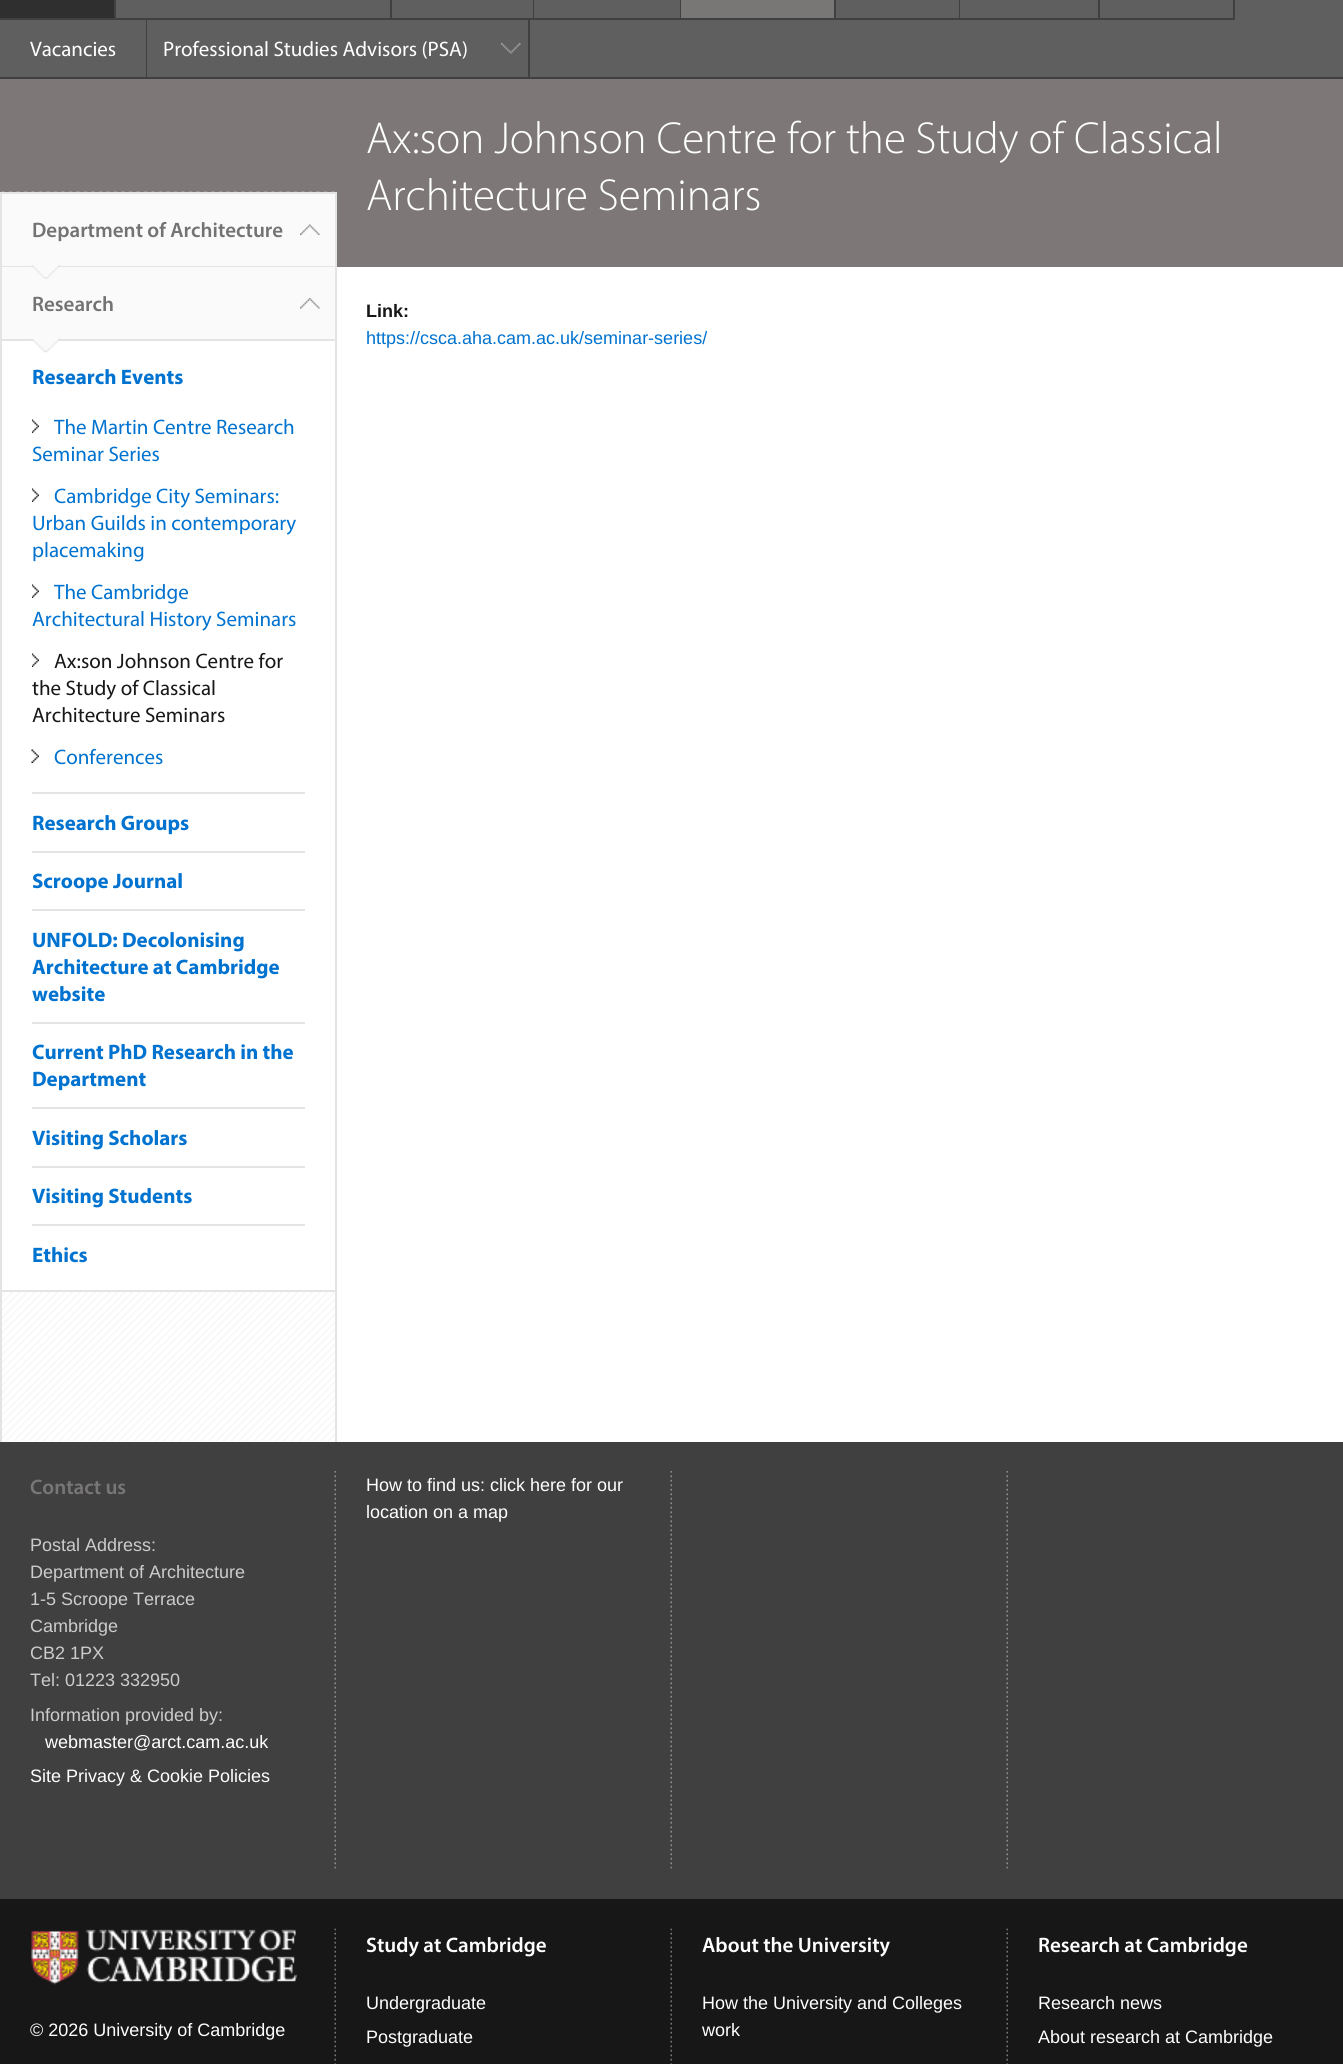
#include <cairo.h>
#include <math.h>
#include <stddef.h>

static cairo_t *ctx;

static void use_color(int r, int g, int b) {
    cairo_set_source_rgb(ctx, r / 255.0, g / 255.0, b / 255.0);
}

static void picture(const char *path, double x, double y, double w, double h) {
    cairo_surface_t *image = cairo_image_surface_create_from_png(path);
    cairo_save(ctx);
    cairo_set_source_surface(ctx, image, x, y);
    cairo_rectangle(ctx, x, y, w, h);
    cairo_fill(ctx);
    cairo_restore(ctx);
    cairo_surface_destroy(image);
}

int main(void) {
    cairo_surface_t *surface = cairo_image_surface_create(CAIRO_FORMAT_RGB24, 1343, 2064);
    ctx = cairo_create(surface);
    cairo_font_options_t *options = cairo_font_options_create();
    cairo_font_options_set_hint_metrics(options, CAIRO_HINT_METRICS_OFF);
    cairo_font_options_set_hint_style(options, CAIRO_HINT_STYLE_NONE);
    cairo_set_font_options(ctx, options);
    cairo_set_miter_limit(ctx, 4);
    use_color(255, 255, 255);
    cairo_paint(ctx);
    use_color(95, 95, 95);
    cairo_rectangle(ctx, 392, 0, 951, 77);
    cairo_fill(ctx);
    use_color(64, 64, 64);
    cairo_rectangle(ctx, 530, 77, 813, 2);
    cairo_fill(ctx);
    use_color(47, 47, 47);
    cairo_rectangle(ctx, 0, 0, 114, 18);
    cairo_fill(ctx);
    use_color(64, 64, 64);
    cairo_rectangle(ctx, 114, 0, 2, 20);
    cairo_fill(ctx);
    use_color(95, 95, 95);
    cairo_rectangle(ctx, 116, 0, 274, 18);
    cairo_fill(ctx);
    use_color(64, 64, 64);
    cairo_rectangle(ctx, 390, 0, 2, 20);
    cairo_fill(ctx);
    cairo_rectangle(ctx, 146, 18, 1, 60);
    cairo_fill(ctx);
    cairo_rectangle(ctx, 116, 18, 31, 2);
    cairo_fill(ctx);
    cairo_rectangle(ctx, 533, 0, 1, 20);
    cairo_fill(ctx);
    cairo_rectangle(ctx, 147, 18, 387, 2);
    cairo_fill(ctx);
    cairo_rectangle(ctx, 680, 0, 1, 20);
    cairo_fill(ctx);
    cairo_rectangle(ctx, 534, 18, 147, 2);
    cairo_fill(ctx);
    use_color(121, 118, 118);
    cairo_rectangle(ctx, 681, 0, 153, 18);
    cairo_fill(ctx);
    use_color(64, 64, 64);
    cairo_rectangle(ctx, 834, 0, 2, 20);
    cairo_fill(ctx);
    cairo_rectangle(ctx, 681, 18, 155, 2);
    cairo_fill(ctx);
    cairo_rectangle(ctx, 959, 0, 1, 20);
    cairo_fill(ctx);
    cairo_rectangle(ctx, 836, 18, 124, 2);
    cairo_fill(ctx);
    cairo_rectangle(ctx, 1098, 0, 2, 20);
    cairo_fill(ctx);
    cairo_rectangle(ctx, 960, 18, 140, 2);
    cairo_fill(ctx);
    cairo_rectangle(ctx, 1233, 0, 2, 20);
    cairo_fill(ctx);
    cairo_rectangle(ctx, 1100, 18, 135, 2);
    cairo_fill(ctx);
    use_color(95, 95, 95);
    cairo_rectangle(ctx, 0, 20, 146, 57);
    cairo_fill(ctx);
    use_color(64, 64, 64);
    cairo_rectangle(ctx, 0, 18, 116, 2);
    cairo_fill(ctx);
    cairo_rectangle(ctx, 0, 77, 147, 2);
    cairo_fill(ctx);
    cairo_select_font_face(ctx, "Myriad", CAIRO_FONT_SLANT_NORMAL, CAIRO_FONT_WEIGHT_NORMAL);
    cairo_set_font_size(ctx, 21);
    use_color(255, 255, 255);
    cairo_move_to(ctx, 30, 56);
    cairo_show_text(ctx, "Vacancies");
    use_color(95, 95, 95);
    cairo_rectangle(ctx, 147, 20, 245, 57);
    cairo_fill(ctx);
    picture("img1.png", 501, 43, 20, 11);
    use_color(64, 64, 64);
    cairo_rectangle(ctx, 528, 18, 2, 60);
    cairo_fill(ctx);
    cairo_rectangle(ctx, 147, 77, 383, 2);
    cairo_fill(ctx);
    use_color(255, 255, 255);
    cairo_move_to(ctx, 163, 56);
    cairo_show_text(ctx, "Professional Studies Advisors (PSA)");
    use_color(125, 119, 119);
    cairo_rectangle(ctx, 0, 79, 1343, 188);
    cairo_fill(ctx);
    cairo_select_font_face(ctx, "Myriad Light", CAIRO_FONT_SLANT_NORMAL, CAIRO_FONT_WEIGHT_NORMAL);
    cairo_set_font_size(ctx, 45);
    use_color(255, 255, 255);
    cairo_move_to(ctx, 366, 153);
    cairo_show_text(ctx, "Ax:son Johnson Centre for the Study of Classical");
    cairo_move_to(ctx, 366, 210);
    cairo_show_text(ctx, "Architecture Seminars");
    picture("img2.png", 1, 191, 334, 1250);
    use_color(228, 228, 228);
    cairo_rectangle(ctx, 0, 192, 336, 2);
    cairo_fill(ctx);
    cairo_rectangle(ctx, 335, 192, 2, 1250);
    cairo_fill(ctx);
    cairo_rectangle(ctx, 0, 192, 2, 1250);
    cairo_fill(ctx);
    use_color(255, 255, 255);
    cairo_rectangle(ctx, 2, 341, 333, 949);
    cairo_fill(ctx);
    use_color(228, 228, 228);
    cairo_rectangle(ctx, 2, 1290, 333, 2);
    cairo_fill(ctx);
    use_color(250, 250, 250);
    cairo_rectangle(ctx, 2, 194, 333, 72);
    cairo_fill(ctx);
    picture("img3.png", 300, 224, 20, 11);
    use_color(228, 228, 228);
    cairo_rectangle(ctx, 2, 266, 333, 1);
    cairo_fill(ctx);
    cairo_select_font_face(ctx, "Myriad SemiBold", CAIRO_FONT_SLANT_NORMAL, CAIRO_FONT_WEIGHT_NORMAL);
    cairo_set_font_size(ctx, 21);
    use_color(115, 115, 115);
    cairo_move_to(ctx, 32, 237);
    cairo_show_text(ctx, "Department of Architecture");
    use_color(250, 250, 250);
    cairo_rectangle(ctx, 2, 267, 333, 72);
    cairo_fill(ctx);
    picture("img4.png", 31, 265, 29, 14);
    picture("img5.png", 300, 298, 20, 11);
    use_color(228, 228, 228);
    cairo_rectangle(ctx, 2, 339, 333, 2);
    cairo_fill(ctx);
    use_color(115, 115, 115);
    cairo_move_to(ctx, 32, 311);
    cairo_show_text(ctx, "Research");
    picture("img6.png", 31, 338, 29, 15);
    use_color(228, 228, 228);
    cairo_rectangle(ctx, 32, 792, 273, 2);
    cairo_fill(ctx);
    cairo_select_font_face(ctx, "Myriad", CAIRO_FONT_SLANT_NORMAL, CAIRO_FONT_WEIGHT_BOLD);
    use_color(0, 114, 207);
    cairo_move_to(ctx, 32, 384);
    cairo_show_text(ctx, "Research Events");
    picture("img7.png", 32, 419, 7, 14);
    cairo_select_font_face(ctx, "Myriad", CAIRO_FONT_SLANT_NORMAL, CAIRO_FONT_WEIGHT_NORMAL);
    cairo_move_to(ctx, 54, 434);
    cairo_show_text(ctx, "The Martin Centre Research");
    cairo_move_to(ctx, 32, 461);
    cairo_show_text(ctx, "Seminar Series");
    picture("img7.png", 32, 488, 7, 14);
    cairo_move_to(ctx, 54, 503);
    cairo_show_text(ctx, "Cambridge City Seminars:");
    cairo_move_to(ctx, 32, 530);
    cairo_show_text(ctx, "Urban Guilds in contemporary");
    cairo_move_to(ctx, 32, 557);
    cairo_show_text(ctx, "placemaking");
    picture("img7.png", 32, 584, 7, 14);
    cairo_move_to(ctx, 54, 599);
    cairo_show_text(ctx, "The Cambridge");
    cairo_move_to(ctx, 32, 626);
    cairo_show_text(ctx, "Architectural History Seminars");
    picture("img7.png", 32, 653, 7, 14);
    use_color(23, 23, 23);
    cairo_move_to(ctx, 54, 668);
    cairo_show_text(ctx, "Ax:son Johnson Centre for");
    cairo_move_to(ctx, 32, 695);
    cairo_show_text(ctx, "the Study of Classical");
    cairo_move_to(ctx, 32, 722);
    cairo_show_text(ctx, "Architecture Seminars");
    picture("img8.png", 31, 749, 8, 14);
    use_color(0, 114, 207);
    cairo_move_to(ctx, 54, 764);
    cairo_show_text(ctx, "Conferences");
    use_color(228, 228, 228);
    cairo_rectangle(ctx, 32, 851, 273, 2);
    cairo_fill(ctx);
    cairo_select_font_face(ctx, "Myriad", CAIRO_FONT_SLANT_NORMAL, CAIRO_FONT_WEIGHT_BOLD);
    use_color(0, 114, 207);
    cairo_move_to(ctx, 32, 830);
    cairo_show_text(ctx, "Research Groups");
    use_color(228, 228, 228);
    cairo_rectangle(ctx, 32, 909, 273, 2);
    cairo_fill(ctx);
    use_color(0, 114, 207);
    cairo_move_to(ctx, 32, 888);
    cairo_show_text(ctx, "Scroope Journal");
    use_color(228, 228, 228);
    cairo_rectangle(ctx, 32, 1022, 273, 2);
    cairo_fill(ctx);
    use_color(0, 114, 207);
    cairo_move_to(ctx, 32, 947);
    cairo_show_text(ctx, "UNFOLD: Decolonising");
    cairo_move_to(ctx, 32, 974);
    cairo_show_text(ctx, "Architecture at Cambridge");
    cairo_move_to(ctx, 32, 1001);
    cairo_show_text(ctx, "website");
    use_color(228, 228, 228);
    cairo_rectangle(ctx, 32, 1107, 273, 2);
    cairo_fill(ctx);
    use_color(0, 114, 207);
    cairo_move_to(ctx, 32, 1059);
    cairo_show_text(ctx, "Current PhD Research in the");
    cairo_move_to(ctx, 32, 1086);
    cairo_show_text(ctx, "Department");
    use_color(228, 228, 228);
    cairo_rectangle(ctx, 32, 1166, 273, 2);
    cairo_fill(ctx);
    use_color(0, 114, 207);
    cairo_move_to(ctx, 32, 1145);
    cairo_show_text(ctx, "Visiting Scholars");
    use_color(228, 228, 228);
    cairo_rectangle(ctx, 32, 1224, 273, 2);
    cairo_fill(ctx);
    use_color(0, 114, 207);
    cairo_move_to(ctx, 32, 1203);
    cairo_show_text(ctx, "Visiting Students");
    cairo_move_to(ctx, 32, 1262);
    cairo_show_text(ctx, "Ethics");
    cairo_select_font_face(ctx, "Liberation Sans", CAIRO_FONT_SLANT_NORMAL, CAIRO_FONT_WEIGHT_BOLD);
    cairo_set_font_size(ctx, 18);
    use_color(23, 23, 23);
    cairo_move_to(ctx, 366, 317);
    cairo_show_text(ctx, "Link:");
    cairo_select_font_face(ctx, "Liberation Sans", CAIRO_FONT_SLANT_NORMAL, CAIRO_FONT_WEIGHT_NORMAL);
    use_color(0, 114, 207);
    cairo_move_to(ctx, 366, 344);
    cairo_show_text(ctx, "https://csca.aha.cam.ac.uk/seminar-series/");
    use_color(64, 64, 64);
    cairo_rectangle(ctx, 0, 1442, 1343, 457);
    cairo_fill(ctx);
    picture("img9.png", 334, 1471, 2, 398);
    cairo_select_font_face(ctx, "Myriad SemiBold", CAIRO_FONT_SLANT_NORMAL, CAIRO_FONT_WEIGHT_NORMAL);
    cairo_set_font_size(ctx, 21);
    use_color(121, 118, 118);
    cairo_move_to(ctx, 30, 1494);
    cairo_show_text(ctx, "Contact us");
    cairo_select_font_face(ctx, "Liberation Sans", CAIRO_FONT_SLANT_NORMAL, CAIRO_FONT_WEIGHT_NORMAL);
    cairo_set_font_size(ctx, 18);
    use_color(204, 204, 204);
    cairo_move_to(ctx, 30, 1551);
    cairo_show_text(ctx, "Postal Address:");
    cairo_move_to(ctx, 30, 1578);
    cairo_show_text(ctx, "Department of Architecture");
    cairo_move_to(ctx, 30, 1605);
    cairo_show_text(ctx, "1-5 Scroope Terrace");
    cairo_move_to(ctx, 30, 1632);
    cairo_show_text(ctx, "Cambridge");
    cairo_move_to(ctx, 30, 1659);
    cairo_show_text(ctx, "CB2 1PX");
    cairo_move_to(ctx, 30, 1686);
    cairo_show_text(ctx, "Tel: 01223 332950");
    cairo_move_to(ctx, 30, 1721);
    cairo_show_text(ctx, "Information provided by:");
    use_color(255, 255, 255);
    cairo_move_to(ctx, 45, 1748);
    cairo_show_text(ctx, "webmaster@arct.cam.ac.uk");
    cairo_move_to(ctx, 30, 1782);
    cairo_show_text(ctx, "Site Privacy & Cookie Policies");
    picture("img9.png", 670, 1471, 2, 398);
    cairo_move_to(ctx, 366, 1491);
    cairo_show_text(ctx, "How to find us: click here for our");
    cairo_move_to(ctx, 366, 1518);
    cairo_show_text(ctx, "location on a map");
    picture("img9.png", 1006, 1471, 2, 398);
    use_color(23, 23, 23);
    cairo_rectangle(ctx, 0, 1899, 1343, 165);
    cairo_fill(ctx);
    picture("img10.png", 334, 1928, 2, 136);
    picture("img11.png", 31, 1929, 266, 56);
    use_color(255, 255, 255);
    cairo_move_to(ctx, 30, 2036);
    cairo_show_text(ctx, "© 2026 University of Cambridge");
    picture("img10.png", 670, 1928, 2, 136);
    cairo_select_font_face(ctx, "Myriad SemiBold", CAIRO_FONT_SLANT_NORMAL, CAIRO_FONT_WEIGHT_NORMAL);
    cairo_set_font_size(ctx, 21);
    cairo_move_to(ctx, 366, 1952);
    cairo_show_text(ctx, "Study at Cambridge");
    cairo_select_font_face(ctx, "Liberation Sans", CAIRO_FONT_SLANT_NORMAL, CAIRO_FONT_WEIGHT_NORMAL);
    cairo_set_font_size(ctx, 18);
    cairo_move_to(ctx, 366, 2009);
    cairo_show_text(ctx, "Undergraduate");
    cairo_move_to(ctx, 366, 2043);
    cairo_show_text(ctx, "Postgraduate");
    picture("img10.png", 1006, 1928, 2, 136);
    cairo_select_font_face(ctx, "Myriad SemiBold", CAIRO_FONT_SLANT_NORMAL, CAIRO_FONT_WEIGHT_NORMAL);
    cairo_set_font_size(ctx, 21);
    cairo_move_to(ctx, 702, 1952);
    cairo_show_text(ctx, "About the University");
    cairo_select_font_face(ctx, "Liberation Sans", CAIRO_FONT_SLANT_NORMAL, CAIRO_FONT_WEIGHT_NORMAL);
    cairo_set_font_size(ctx, 18);
    cairo_move_to(ctx, 702, 2009);
    cairo_show_text(ctx, "How the University and Colleges");
    cairo_move_to(ctx, 702, 2036);
    cairo_show_text(ctx, "work");
    cairo_select_font_face(ctx, "Myriad SemiBold", CAIRO_FONT_SLANT_NORMAL, CAIRO_FONT_WEIGHT_NORMAL);
    cairo_set_font_size(ctx, 21);
    cairo_move_to(ctx, 1038, 1952);
    cairo_show_text(ctx, "Research at Cambridge");
    cairo_select_font_face(ctx, "Liberation Sans", CAIRO_FONT_SLANT_NORMAL, CAIRO_FONT_WEIGHT_NORMAL);
    cairo_set_font_size(ctx, 18);
    cairo_move_to(ctx, 1038, 2009);
    cairo_show_text(ctx, "Research news");
    cairo_move_to(ctx, 1038, 2043);
    cairo_show_text(ctx, "About research at Cambridge");
    cairo_surface_write_to_png(surface, "result.png");
    cairo_font_options_destroy(options);
    cairo_destroy(ctx);
    cairo_surface_destroy(surface);
    return 0;
}
